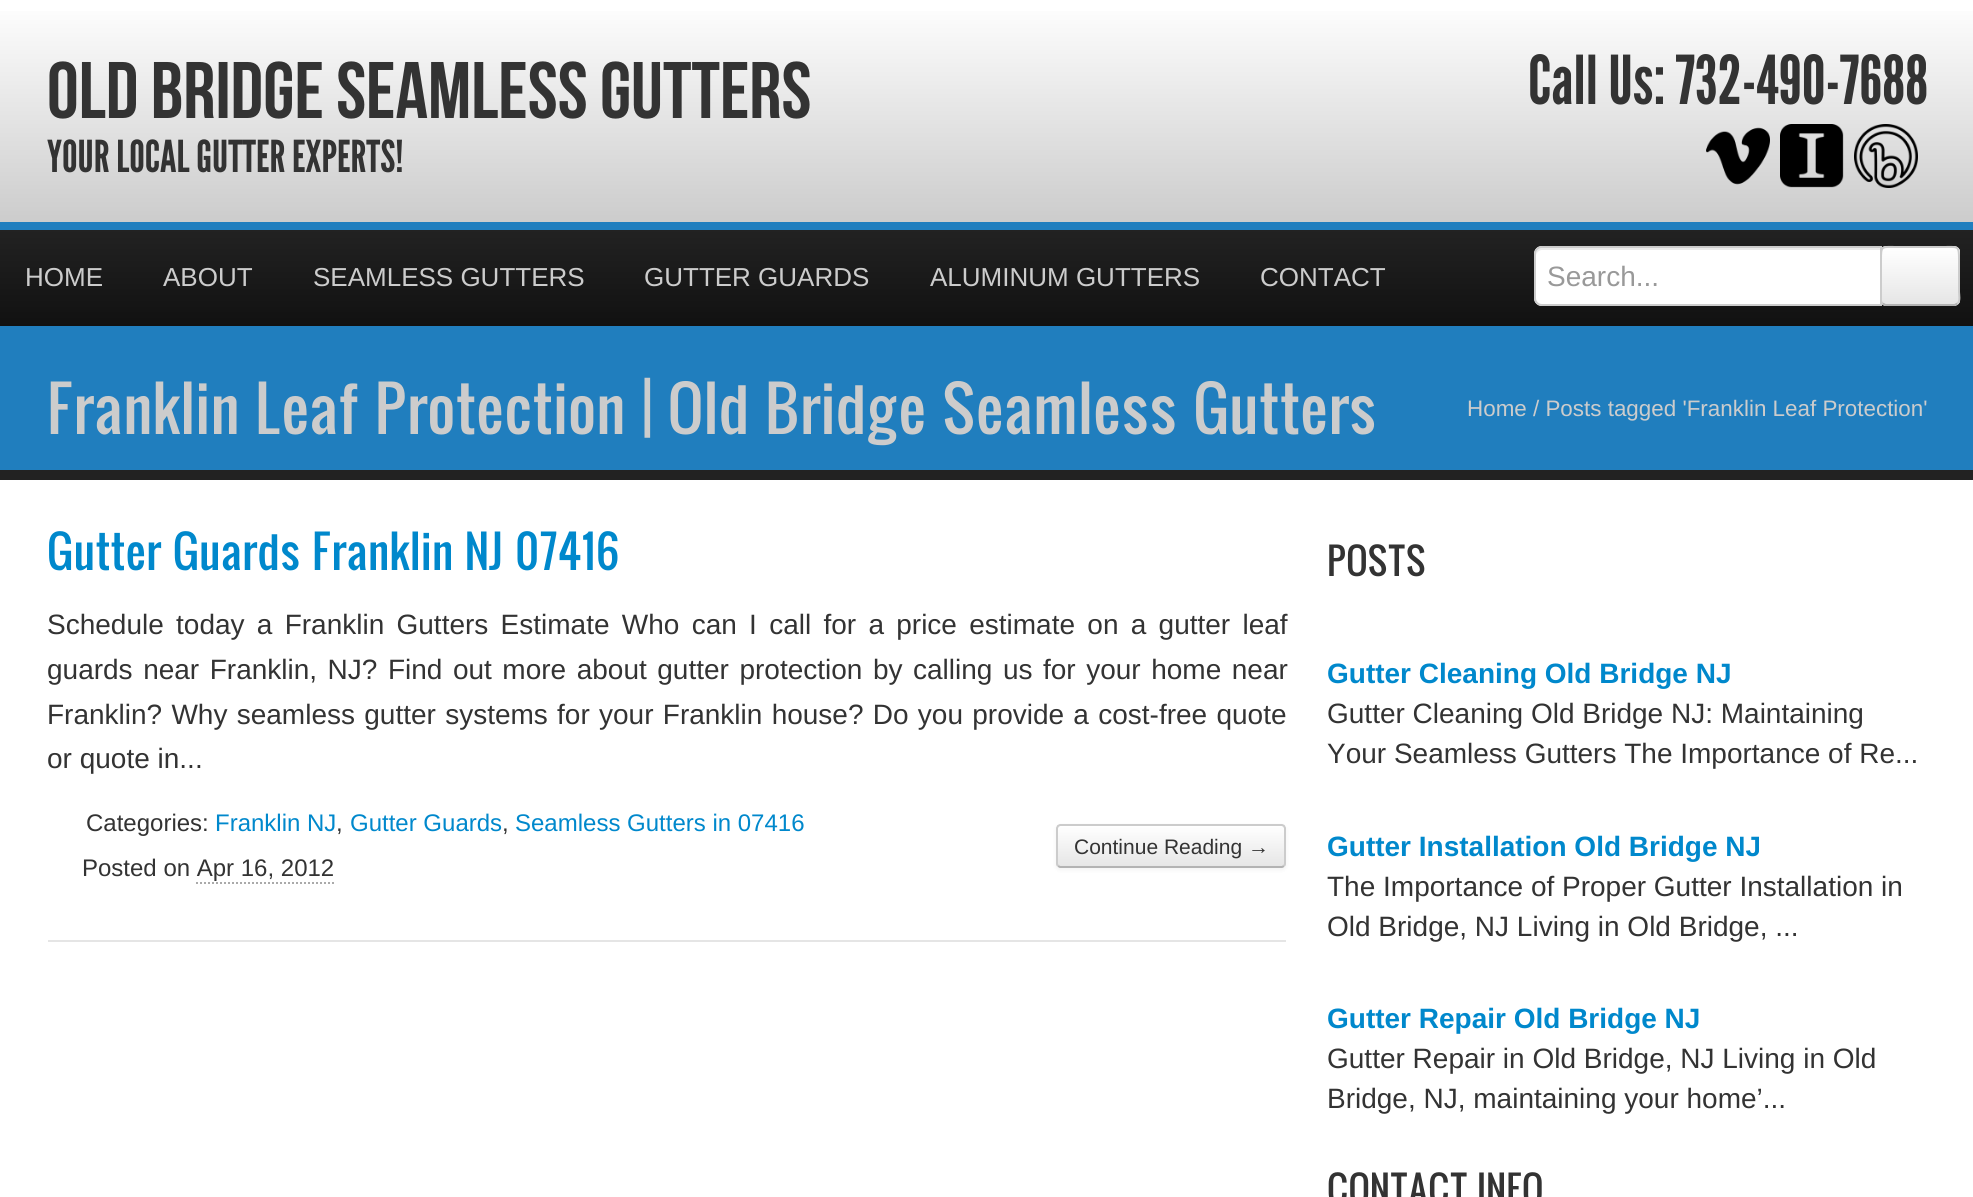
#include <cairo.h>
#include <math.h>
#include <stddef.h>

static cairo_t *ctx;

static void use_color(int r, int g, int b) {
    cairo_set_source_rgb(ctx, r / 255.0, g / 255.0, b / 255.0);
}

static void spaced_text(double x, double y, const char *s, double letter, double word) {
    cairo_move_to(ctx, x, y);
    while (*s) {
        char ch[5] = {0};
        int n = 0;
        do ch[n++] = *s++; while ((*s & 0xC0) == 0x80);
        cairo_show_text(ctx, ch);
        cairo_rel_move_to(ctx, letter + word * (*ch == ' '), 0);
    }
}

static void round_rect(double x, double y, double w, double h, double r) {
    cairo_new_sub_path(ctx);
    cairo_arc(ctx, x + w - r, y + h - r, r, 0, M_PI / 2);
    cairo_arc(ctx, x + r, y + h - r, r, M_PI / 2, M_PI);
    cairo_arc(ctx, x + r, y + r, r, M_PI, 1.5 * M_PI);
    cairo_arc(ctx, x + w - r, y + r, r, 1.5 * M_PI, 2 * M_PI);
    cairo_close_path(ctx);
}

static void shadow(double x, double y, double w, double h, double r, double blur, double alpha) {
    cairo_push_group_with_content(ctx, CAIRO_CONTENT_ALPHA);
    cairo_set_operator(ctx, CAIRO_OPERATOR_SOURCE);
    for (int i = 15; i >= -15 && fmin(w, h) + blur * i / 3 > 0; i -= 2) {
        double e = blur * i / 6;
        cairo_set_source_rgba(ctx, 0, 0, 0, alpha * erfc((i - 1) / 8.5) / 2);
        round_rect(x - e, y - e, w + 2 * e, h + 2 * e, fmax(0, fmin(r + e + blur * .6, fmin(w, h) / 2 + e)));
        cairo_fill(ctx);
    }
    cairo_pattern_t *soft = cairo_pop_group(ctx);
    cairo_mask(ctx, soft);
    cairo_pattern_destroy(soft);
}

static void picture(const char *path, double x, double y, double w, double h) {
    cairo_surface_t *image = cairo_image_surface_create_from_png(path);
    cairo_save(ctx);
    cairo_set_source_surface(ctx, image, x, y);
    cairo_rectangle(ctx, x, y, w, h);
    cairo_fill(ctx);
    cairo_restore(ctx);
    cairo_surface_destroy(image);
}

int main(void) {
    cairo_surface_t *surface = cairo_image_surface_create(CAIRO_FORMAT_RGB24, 1973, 1197);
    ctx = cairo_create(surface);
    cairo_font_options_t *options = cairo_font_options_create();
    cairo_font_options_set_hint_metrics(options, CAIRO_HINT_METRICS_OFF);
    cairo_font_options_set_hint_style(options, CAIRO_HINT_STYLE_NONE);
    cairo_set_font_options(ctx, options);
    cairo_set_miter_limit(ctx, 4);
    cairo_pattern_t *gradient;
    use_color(255, 255, 255);
    cairo_paint(ctx);
    gradient = cairo_pattern_create_linear(987, 0, 987, 222);
    cairo_pattern_add_color_stop_rgba(gradient, 0, 1, 1, 1, 1);
    cairo_pattern_add_color_stop_rgba(gradient, 1, 0.8, 0.8, 0.8, 1);
    cairo_set_source(ctx, gradient);
    cairo_pattern_destroy(gradient);
    cairo_rectangle(ctx, 0, 11, 1973, 211);
    cairo_fill(ctx);
    cairo_select_font_face(ctx, "Bebas Neue", CAIRO_FONT_SLANT_NORMAL, CAIRO_FONT_WEIGHT_NORMAL);
    cairo_set_font_size(ctx, 80);
    use_color(51, 51, 51);
    cairo_move_to(ctx, 47, 118);
    cairo_show_text(ctx, "OLD BRIDGE SEAMLESS GUTTERS");
    cairo_select_font_face(ctx, "League Gothic", CAIRO_FONT_SLANT_NORMAL, CAIRO_FONT_WEIGHT_NORMAL);
    cairo_set_font_size(ctx, 44);
    cairo_move_to(ctx, 47, 172);
    cairo_show_text(ctx, "YOUR LOCAL GUTTER EXPERTS!");
    cairo_set_font_size(ctx, 67.25);
    cairo_move_to(ctx, 1528, 104);
    cairo_show_text(ctx, "Call Us: 732-490-7688");
    picture("img1.png", 1706, 127, 64, 58);
    picture("img2.png", 1780, 124, 64, 64);
    picture("img3.png", 1854, 124, 64, 64);
    gradient = cairo_pattern_create_linear(987, 230, 987, 326);
    cairo_pattern_add_color_stop_rgba(gradient, 0, 0.133, 0.133, 0.133, 1);
    cairo_pattern_add_color_stop_rgba(gradient, 1, 0.067, 0.067, 0.067, 1);
    cairo_set_source(ctx, gradient);
    cairo_pattern_destroy(gradient);
    cairo_rectangle(ctx, 0, 230, 1973, 96);
    cairo_fill(ctx);
    use_color(32, 126, 190);
    cairo_rectangle(ctx, 0, 222, 1973, 8);
    cairo_fill(ctx);
    cairo_select_font_face(ctx, "Liberation Sans", CAIRO_FONT_SLANT_NORMAL, CAIRO_FONT_WEIGHT_NORMAL);
    cairo_set_font_size(ctx, 26);
    use_color(204, 204, 204);
    cairo_move_to(ctx, 25, 286);
    cairo_show_text(ctx, "HOME");
    cairo_move_to(ctx, 163, 286);
    cairo_show_text(ctx, "ABOUT");
    cairo_move_to(ctx, 313, 286);
    cairo_show_text(ctx, "SEAMLESS GUTTERS");
    cairo_move_to(ctx, 644, 286);
    cairo_show_text(ctx, "GUTTER GUARDS");
    cairo_move_to(ctx, 930, 286);
    cairo_show_text(ctx, "ALUMINUM GUTTERS");
    cairo_move_to(ctx, 1260, 286);
    cairo_show_text(ctx, "CONTACT");
    use_color(245, 245, 245);
    round_rect(1880, 246, 80, 60, 6);
    cairo_fill(ctx);
    cairo_save(ctx);
    round_rect(1880, 246, 80, 60, 6);
    cairo_clip(ctx);
    gradient = cairo_pattern_create_linear(1920, 248, 1920, 304);
    cairo_pattern_add_color_stop_rgba(gradient, 0, 1, 1, 1, 1);
    cairo_pattern_add_color_stop_rgba(gradient, 1, 0.902, 0.902, 0.902, 1);
    cairo_set_source(ctx, gradient);
    cairo_pattern_destroy(gradient);
    cairo_rectangle(ctx, 1882, 248, 78, 56);
    cairo_fill(ctx);
    cairo_restore(ctx);
    use_color(255, 255, 255);
    cairo_new_path(ctx);
    cairo_move_to(ctx, 1886, 250);
    cairo_line_to(ctx, 1954, 250);
    cairo_curve_to(ctx, 1956, 250, 1958, 252, 1958, 254);
    cairo_curve_to(ctx, 1958, 245, 1951, 248, 1943, 248);
    cairo_line_to(ctx, 1897, 248);
    cairo_curve_to(ctx, 1889, 248, 1882, 245, 1882, 254);
    cairo_curve_to(ctx, 1882, 252, 1884, 250, 1886, 250);
    cairo_close_path(ctx);
    cairo_fill(ctx);
    cairo_new_path(ctx);
    cairo_move_to(ctx, 1957.5, 303.5);
    cairo_line_to(ctx, 1954.5, 305);
    cairo_line_to(ctx, 1885.5, 305);
    cairo_line_to(ctx, 1882.5, 303.5);
    use_color(179, 179, 179);
    cairo_stroke(ctx);
    cairo_new_path(ctx);
    cairo_move_to(ctx, 1882.5, 303.5);
    cairo_curve_to(ctx, 1879.5, 301, 1881, 294.5, 1881, 292);
    cairo_line_to(ctx, 1881, 260);
    cairo_curve_to(ctx, 1881, 245, 1881.5, 247, 1897.5, 247);
    cairo_line_to(ctx, 1942.5, 247);
    cairo_curve_to(ctx, 1958.5, 247, 1959, 245, 1959, 260);
    cairo_line_to(ctx, 1959, 292);
    cairo_curve_to(ctx, 1959, 294.5, 1960.5, 301, 1957.5, 303.5);
    use_color(204, 204, 204);
    cairo_stroke(ctx);
    use_color(255, 255, 255);
    cairo_new_path(ctx);
    cairo_move_to(ctx, 1542, 246);
    cairo_line_to(ctx, 1882, 246);
    cairo_line_to(ctx, 1882, 306);
    cairo_line_to(ctx, 1542, 306);
    cairo_curve_to(ctx, 1537.5, 306, 1534, 302.5, 1534, 298);
    cairo_line_to(ctx, 1534, 254);
    cairo_curve_to(ctx, 1534, 249.5, 1537.5, 246, 1542, 246);
    cairo_close_path(ctx);
    cairo_fill(ctx);
    use_color(236, 236, 236);
    cairo_new_path(ctx);
    cairo_move_to(ctx, 1542, 250);
    cairo_line_to(ctx, 1880, 250);
    cairo_line_to(ctx, 1880, 248);
    cairo_line_to(ctx, 1542, 248);
    cairo_curve_to(ctx, 1537, 248, 1536, 252, 1536, 256);
    cairo_curve_to(ctx, 1536, 253, 1539, 250, 1542, 250);
    cairo_close_path(ctx);
    cairo_fill(ctx);
    cairo_new_path(ctx);
    cairo_move_to(ctx, 1542, 247);
    cairo_line_to(ctx, 1881, 247);
    cairo_line_to(ctx, 1881, 305);
    cairo_line_to(ctx, 1542, 305);
    cairo_curve_to(ctx, 1538, 305, 1535, 302, 1535, 298);
    cairo_line_to(ctx, 1535, 254);
    cairo_curve_to(ctx, 1535, 250, 1538, 247, 1542, 247);
    cairo_close_path(ctx);
    use_color(204, 204, 204);
    cairo_stroke(ctx);
    cairo_set_font_size(ctx, 28);
    use_color(153, 153, 153);
    cairo_move_to(ctx, 1547, 286);
    cairo_show_text(ctx, "Search...");
    use_color(32, 126, 190);
    cairo_rectangle(ctx, 0, 326, 1973, 144);
    cairo_fill(ctx);
    use_color(34, 34, 34);
    cairo_rectangle(ctx, 0, 470, 1973, 10);
    cairo_fill(ctx);
    cairo_select_font_face(ctx, "Oswald", CAIRO_FONT_SLANT_NORMAL, CAIRO_FONT_WEIGHT_NORMAL);
    cairo_set_font_size(ctx, 60);
    use_color(204, 204, 204);
    cairo_move_to(ctx, 47, 434);
    cairo_show_text(ctx, "Franklin Leaf Protection | Old Bridge Seamless Gutters");
    cairo_select_font_face(ctx, "Liberation Sans", CAIRO_FONT_SLANT_NORMAL, CAIRO_FONT_WEIGHT_NORMAL);
    cairo_set_font_size(ctx, 22.4);
    cairo_move_to(ctx, 1467, 416);
    cairo_show_text(ctx, "Home / Posts tagged 'Franklin Leaf Protection'");
    cairo_select_font_face(ctx, "Oswald", CAIRO_FONT_SLANT_NORMAL, CAIRO_FONT_WEIGHT_NORMAL);
    cairo_set_font_size(ctx, 44);
    use_color(0, 136, 204);
    cairo_move_to(ctx, 47, 570);
    cairo_show_text(ctx, "Gutter Guards Franklin NJ 07416");
    cairo_select_font_face(ctx, "Liberation Sans", CAIRO_FONT_SLANT_NORMAL, CAIRO_FONT_WEIGHT_NORMAL);
    cairo_set_font_size(ctx, 28);
    use_color(51, 51, 51);
    spaced_text(47, 634, "Schedule today a Franklin Gutters Estimate Who can I call for a price estimate on a gutter leaf", 0, 4.5);
    spaced_text(47, 679, "guards near Franklin, NJ? Find out more about gutter protection by calling us for your home near", 0, 2.75);
    spaced_text(47, 724, "Franklin? Why seamless gutter systems for your Franklin house? Do you provide a cost-free quote", 0, 1.5);
    cairo_move_to(ctx, 47, 768);
    cairo_show_text(ctx, "or quote in...");
    cairo_set_font_size(ctx, 24);
    cairo_move_to(ctx, 86, 831);
    cairo_show_text(ctx, "Categories:");
    use_color(0, 136, 204);
    cairo_move_to(ctx, 215, 831);
    cairo_show_text(ctx, "Franklin NJ");
    use_color(51, 51, 51);
    cairo_move_to(ctx, 336, 831);
    cairo_show_text(ctx, ",");
    use_color(0, 136, 204);
    cairo_move_to(ctx, 350, 831);
    cairo_show_text(ctx, "Gutter Guards");
    use_color(51, 51, 51);
    cairo_move_to(ctx, 502, 831);
    cairo_show_text(ctx, ",");
    use_color(0, 136, 204);
    cairo_move_to(ctx, 515, 831);
    cairo_show_text(ctx, "Seamless Gutters in 07416");
    use_color(51, 51, 51);
    cairo_move_to(ctx, 82, 876);
    cairo_show_text(ctx, "Posted on Apr 16, 2012");
    cairo_new_path(ctx);
    cairo_move_to(ctx, 196, 883);
    cairo_line_to(ctx, 334, 883);
    use_color(170, 170, 170);
    cairo_set_dash(ctx, (double[]){2, 2}, 2, 0);
    cairo_stroke(ctx);
    use_color(0, 0, 0);
    shadow(1056, 826, 230, 44, 4, 2, 0.05);
    use_color(245, 245, 245);
    round_rect(1056, 824, 230, 44, 4);
    cairo_fill(ctx);
    cairo_save(ctx);
    round_rect(1056, 824, 230, 44, 4);
    cairo_clip(ctx);
    gradient = cairo_pattern_create_linear(1171, 826, 1171, 866);
    cairo_pattern_add_color_stop_rgba(gradient, 0, 1, 1, 1, 1);
    cairo_pattern_add_color_stop_rgba(gradient, 1, 0.902, 0.902, 0.902, 1);
    cairo_set_source(ctx, gradient);
    cairo_pattern_destroy(gradient);
    cairo_rectangle(ctx, 1056, 826, 230, 40);
    cairo_fill(ctx);
    cairo_restore(ctx);
    cairo_new_path(ctx);
    cairo_move_to(ctx, 1284, 866);
    cairo_line_to(ctx, 1282, 867);
    cairo_line_to(ctx, 1060, 867);
    cairo_line_to(ctx, 1058, 866);
    use_color(179, 179, 179);
    cairo_set_dash(ctx, NULL, 0, 0);
    cairo_stroke(ctx);
    cairo_new_path(ctx);
    cairo_move_to(ctx, 1058, 866);
    cairo_line_to(ctx, 1057, 864);
    cairo_line_to(ctx, 1057, 828);
    cairo_line_to(ctx, 1058, 826);
    cairo_line_to(ctx, 1060, 825);
    cairo_line_to(ctx, 1282, 825);
    cairo_line_to(ctx, 1284, 826);
    cairo_line_to(ctx, 1285, 828);
    cairo_line_to(ctx, 1285, 864);
    cairo_line_to(ctx, 1284, 866);
    use_color(204, 204, 204);
    cairo_stroke(ctx);
    cairo_set_font_size(ctx, 21);
    use_color(51, 51, 51);
    cairo_move_to(ctx, 1074, 854);
    cairo_show_text(ctx, "Continue Reading →");
    use_color(229, 229, 229);
    cairo_rectangle(ctx, 48, 940, 1238, 2);
    cairo_fill(ctx);
    cairo_select_font_face(ctx, "Oswald", CAIRO_FONT_SLANT_NORMAL, CAIRO_FONT_WEIGHT_NORMAL);
    cairo_set_font_size(ctx, 36);
    use_color(51, 51, 51);
    cairo_move_to(ctx, 1327, 576);
    cairo_show_text(ctx, "POSTS");
    cairo_select_font_face(ctx, "Liberation Sans", CAIRO_FONT_SLANT_NORMAL, CAIRO_FONT_WEIGHT_BOLD);
    cairo_set_font_size(ctx, 28);
    use_color(0, 136, 204);
    cairo_move_to(ctx, 1327, 683);
    cairo_show_text(ctx, "Gutter Cleaning Old Bridge NJ");
    cairo_select_font_face(ctx, "Liberation Sans", CAIRO_FONT_SLANT_NORMAL, CAIRO_FONT_WEIGHT_NORMAL);
    use_color(51, 51, 51);
    cairo_move_to(ctx, 1327, 723);
    cairo_show_text(ctx, "Gutter Cleaning Old Bridge NJ: Maintaining");
    cairo_move_to(ctx, 1327, 763);
    cairo_show_text(ctx, "Your Seamless Gutters The Importance of Re...");
    cairo_select_font_face(ctx, "Liberation Sans", CAIRO_FONT_SLANT_NORMAL, CAIRO_FONT_WEIGHT_BOLD);
    use_color(0, 136, 204);
    cairo_move_to(ctx, 1327, 856);
    cairo_show_text(ctx, "Gutter Installation Old Bridge NJ");
    cairo_select_font_face(ctx, "Liberation Sans", CAIRO_FONT_SLANT_NORMAL, CAIRO_FONT_WEIGHT_NORMAL);
    use_color(51, 51, 51);
    cairo_move_to(ctx, 1327, 896);
    cairo_show_text(ctx, "The Importance of Proper Gutter Installation in");
    cairo_move_to(ctx, 1327, 936);
    cairo_show_text(ctx, "Old Bridge, NJ Living in Old Bridge, ...");
    cairo_select_font_face(ctx, "Liberation Sans", CAIRO_FONT_SLANT_NORMAL, CAIRO_FONT_WEIGHT_BOLD);
    use_color(0, 136, 204);
    cairo_move_to(ctx, 1327, 1028);
    cairo_show_text(ctx, "Gutter Repair Old Bridge NJ");
    cairo_select_font_face(ctx, "Liberation Sans", CAIRO_FONT_SLANT_NORMAL, CAIRO_FONT_WEIGHT_NORMAL);
    use_color(51, 51, 51);
    cairo_move_to(ctx, 1327, 1068);
    cairo_show_text(ctx, "Gutter Repair in Old Bridge, NJ Living in Old");
    cairo_move_to(ctx, 1327, 1108);
    cairo_show_text(ctx, "Bridge, NJ, maintaining your home’...");
    cairo_select_font_face(ctx, "Oswald", CAIRO_FONT_SLANT_NORMAL, CAIRO_FONT_WEIGHT_NORMAL);
    cairo_set_font_size(ctx, 36);
    cairo_move_to(ctx, 1327, 1204);
    cairo_show_text(ctx, "CONTACT INFO");
    cairo_surface_write_to_png(surface, "result.png");
    cairo_font_options_destroy(options);
    cairo_destroy(ctx);
    cairo_surface_destroy(surface);
    return 0;
}
